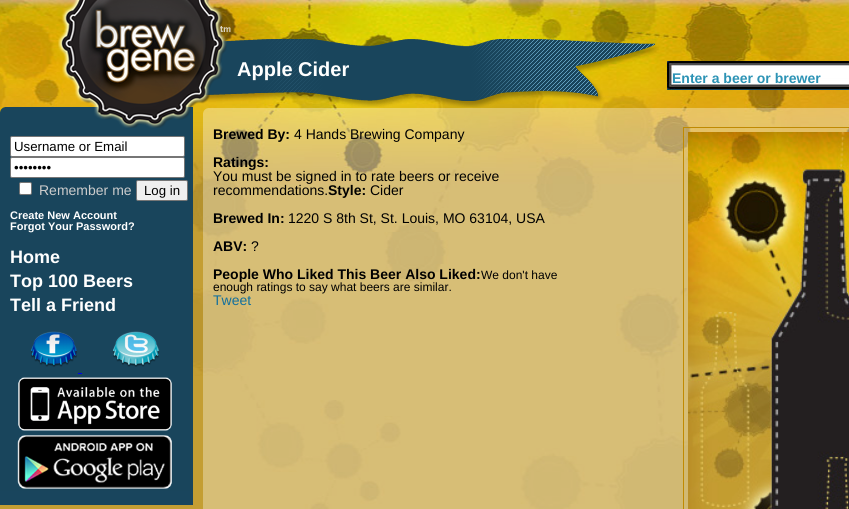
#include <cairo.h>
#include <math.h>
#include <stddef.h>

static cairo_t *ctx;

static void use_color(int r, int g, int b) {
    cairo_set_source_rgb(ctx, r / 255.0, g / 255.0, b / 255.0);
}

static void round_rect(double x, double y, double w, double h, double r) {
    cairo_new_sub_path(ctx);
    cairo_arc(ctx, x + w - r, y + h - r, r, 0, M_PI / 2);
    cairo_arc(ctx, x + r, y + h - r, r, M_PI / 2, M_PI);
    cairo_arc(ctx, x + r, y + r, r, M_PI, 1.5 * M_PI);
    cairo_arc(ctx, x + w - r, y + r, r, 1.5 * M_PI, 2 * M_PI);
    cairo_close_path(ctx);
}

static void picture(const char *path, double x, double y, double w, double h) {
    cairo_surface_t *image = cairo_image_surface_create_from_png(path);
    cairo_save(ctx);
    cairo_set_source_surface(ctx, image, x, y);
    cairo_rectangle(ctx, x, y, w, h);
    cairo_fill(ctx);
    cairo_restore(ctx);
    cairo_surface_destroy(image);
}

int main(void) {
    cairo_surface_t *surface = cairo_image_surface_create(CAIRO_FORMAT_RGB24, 849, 509);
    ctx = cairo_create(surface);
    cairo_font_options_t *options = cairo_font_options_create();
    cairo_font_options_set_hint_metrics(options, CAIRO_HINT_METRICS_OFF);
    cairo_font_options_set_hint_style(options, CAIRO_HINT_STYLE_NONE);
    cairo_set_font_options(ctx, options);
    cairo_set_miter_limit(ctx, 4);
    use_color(255, 255, 255);
    cairo_paint(ctx);
    picture("img1.png", 0, 0, 849, 509);
    picture("img2.png", 58, 0, 601, 107);
    cairo_select_font_face(ctx, "Liberation Sans", CAIRO_FONT_SLANT_NORMAL, CAIRO_FONT_WEIGHT_BOLD);
    cairo_set_font_size(ctx, 20);
    use_color(255, 255, 255);
    cairo_move_to(ctx, 237, 76);
    cairo_show_text(ctx, "Apple Cider");
    picture("img3.png", 667, 61, 182, 29);
    cairo_set_font_size(ctx, 14);
    use_color(44, 147, 181);
    cairo_move_to(ctx, 672, 83);
    cairo_show_text(ctx, "Enter a beer or brewer");
    picture("img4.png", 0, 107, 193, 384);
    use_color(255, 255, 255);
    round_rect(10.5, 136.5, 174, 20, 1.5);
    cairo_fill_preserve(ctx);
    use_color(118, 118, 118);
    cairo_set_line_width(ctx, 1);
    cairo_stroke(ctx);
    cairo_select_font_face(ctx, "Liberation Sans", CAIRO_FONT_SLANT_NORMAL, CAIRO_FONT_WEIGHT_NORMAL);
    cairo_set_font_size(ctx, 13.25);
    use_color(0, 0, 0);
    cairo_move_to(ctx, 14, 151);
    cairo_show_text(ctx, "Username or Email");
    use_color(255, 255, 255);
    round_rect(10.5, 157.5, 174, 20, 1.5);
    cairo_fill_preserve(ctx);
    use_color(118, 118, 118);
    cairo_stroke(ctx);
    use_color(0, 0, 0);
    cairo_move_to(ctx, 14, 172);
    cairo_show_text(ctx, "••••••••");
    use_color(255, 255, 255);
    round_rect(19.5, 182.5, 12, 12, 1.5);
    cairo_fill_preserve(ctx);
    use_color(118, 118, 118);
    cairo_stroke(ctx);
    cairo_set_font_size(ctx, 14);
    use_color(204, 204, 204);
    cairo_move_to(ctx, 39, 195);
    cairo_show_text(ctx, "Remember me");
    use_color(239, 239, 239);
    round_rect(136.5, 180.5, 51, 20, 1.5);
    cairo_fill_preserve(ctx);
    use_color(118, 118, 118);
    cairo_stroke(ctx);
    cairo_set_font_size(ctx, 13.25);
    use_color(0, 0, 0);
    cairo_move_to(ctx, 144, 195);
    cairo_show_text(ctx, "Log in");
    cairo_select_font_face(ctx, "Liberation Sans", CAIRO_FONT_SLANT_NORMAL, CAIRO_FONT_WEIGHT_BOLD);
    cairo_set_font_size(ctx, 11);
    use_color(255, 255, 255);
    cairo_move_to(ctx, 10, 219);
    cairo_show_text(ctx, "Create New Account");
    cairo_move_to(ctx, 10, 230);
    cairo_show_text(ctx, "Forgot Your Password?");
    cairo_set_font_size(ctx, 18);
    cairo_move_to(ctx, 10, 263);
    cairo_show_text(ctx, "Home");
    cairo_move_to(ctx, 10, 287);
    cairo_show_text(ctx, "Top 100 Beers");
    cairo_move_to(ctx, 10, 311);
    cairo_show_text(ctx, "Tell a Friend");
    picture("img5.png", 31, 331, 46, 36);
    picture("img6.png", 112, 331, 47, 36);
    use_color(0, 0, 238);
    cairo_rectangle(ctx, 78, 373, 4, 1);
    cairo_fill(ctx);
    picture("img7.png", 18, 377, 154, 54);
    picture("img8.png", 17, 435, 155, 54);
    use_color(25, 69, 93);
    cairo_rectangle(ctx, 0, 491, 193, 14);
    cairo_fill(ctx);
    picture("img9.png", 203, 108, 646, 9);
    cairo_set_source_rgba(ctx, 1, 1, 1, 0.33);
    cairo_rectangle(ctx, 203, 117, 646, 392);
    cairo_fill(ctx);
    cairo_set_font_size(ctx, 14);
    use_color(0, 0, 0);
    cairo_move_to(ctx, 213, 139);
    cairo_show_text(ctx, "Brewed By:");
    cairo_select_font_face(ctx, "Liberation Sans", CAIRO_FONT_SLANT_NORMAL, CAIRO_FONT_WEIGHT_NORMAL);
    cairo_move_to(ctx, 294, 139);
    cairo_show_text(ctx, "4 Hands Brewing Company");
    cairo_select_font_face(ctx, "Liberation Sans", CAIRO_FONT_SLANT_NORMAL, CAIRO_FONT_WEIGHT_BOLD);
    cairo_move_to(ctx, 213, 167);
    cairo_show_text(ctx, "Ratings:");
    cairo_select_font_face(ctx, "Liberation Sans", CAIRO_FONT_SLANT_NORMAL, CAIRO_FONT_WEIGHT_NORMAL);
    cairo_move_to(ctx, 213, 181);
    cairo_show_text(ctx, "You must be signed in to rate beers or receive");
    cairo_move_to(ctx, 213, 195);
    cairo_show_text(ctx, "recommendations.");
    cairo_select_font_face(ctx, "Liberation Sans", CAIRO_FONT_SLANT_NORMAL, CAIRO_FONT_WEIGHT_BOLD);
    cairo_move_to(ctx, 328, 195);
    cairo_show_text(ctx, "Style:");
    cairo_select_font_face(ctx, "Liberation Sans", CAIRO_FONT_SLANT_NORMAL, CAIRO_FONT_WEIGHT_NORMAL);
    cairo_move_to(ctx, 370, 195);
    cairo_show_text(ctx, "Cider");
    cairo_select_font_face(ctx, "Liberation Sans", CAIRO_FONT_SLANT_NORMAL, CAIRO_FONT_WEIGHT_BOLD);
    cairo_move_to(ctx, 213, 223);
    cairo_show_text(ctx, "Brewed In:");
    cairo_select_font_face(ctx, "Liberation Sans", CAIRO_FONT_SLANT_NORMAL, CAIRO_FONT_WEIGHT_NORMAL);
    cairo_move_to(ctx, 288, 223);
    cairo_show_text(ctx, "1220 S 8th St, St. Louis, MO 63104, USA");
    cairo_select_font_face(ctx, "Liberation Sans", CAIRO_FONT_SLANT_NORMAL, CAIRO_FONT_WEIGHT_BOLD);
    cairo_move_to(ctx, 213, 251);
    cairo_show_text(ctx, "ABV:");
    cairo_select_font_face(ctx, "Liberation Sans", CAIRO_FONT_SLANT_NORMAL, CAIRO_FONT_WEIGHT_NORMAL);
    cairo_move_to(ctx, 251, 251);
    cairo_show_text(ctx, "?");
    cairo_select_font_face(ctx, "Liberation Sans", CAIRO_FONT_SLANT_NORMAL, CAIRO_FONT_WEIGHT_BOLD);
    cairo_move_to(ctx, 213, 279);
    cairo_show_text(ctx, "People Who Liked This Beer Also Liked:");
    cairo_select_font_face(ctx, "Liberation Sans", CAIRO_FONT_SLANT_NORMAL, CAIRO_FONT_WEIGHT_NORMAL);
    cairo_set_font_size(ctx, 12);
    cairo_move_to(ctx, 481, 279);
    cairo_show_text(ctx, "We don't have");
    cairo_move_to(ctx, 213, 291);
    cairo_show_text(ctx, "enough ratings to say what beers are similar.");
    cairo_set_font_size(ctx, 14);
    use_color(18, 111, 157);
    cairo_move_to(ctx, 213, 305);
    cairo_show_text(ctx, "Tweet");
    cairo_rectangle(ctx, 683.5, 127.5, 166, 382);
    use_color(192, 138, 2);
    cairo_stroke(ctx);
    picture("img10.png", 688, 132, 161, 377);
    cairo_surface_write_to_png(surface, "result.png");
    cairo_font_options_destroy(options);
    cairo_destroy(ctx);
    cairo_surface_destroy(surface);
    return 0;
}
